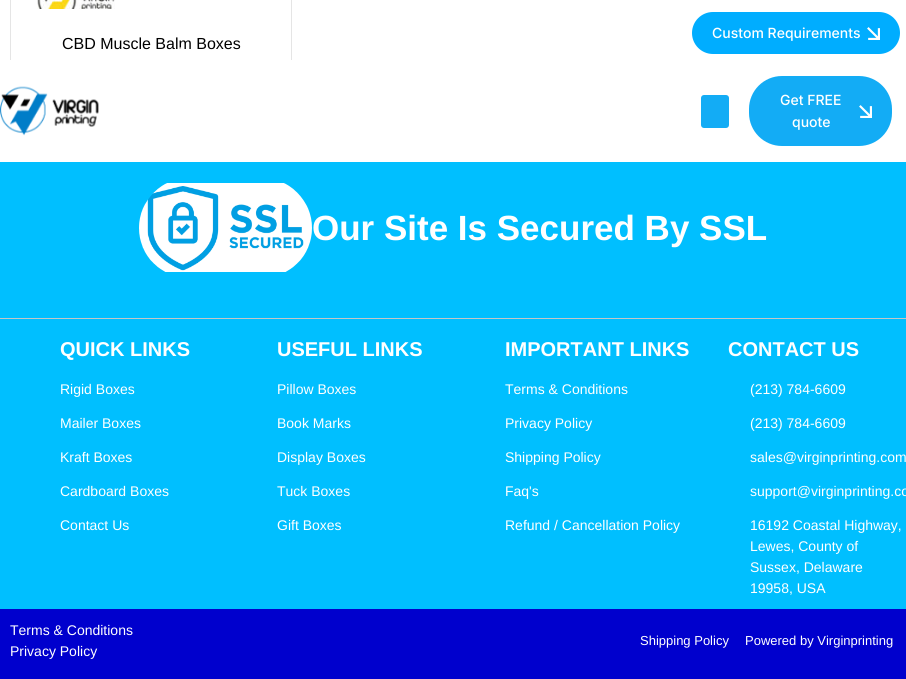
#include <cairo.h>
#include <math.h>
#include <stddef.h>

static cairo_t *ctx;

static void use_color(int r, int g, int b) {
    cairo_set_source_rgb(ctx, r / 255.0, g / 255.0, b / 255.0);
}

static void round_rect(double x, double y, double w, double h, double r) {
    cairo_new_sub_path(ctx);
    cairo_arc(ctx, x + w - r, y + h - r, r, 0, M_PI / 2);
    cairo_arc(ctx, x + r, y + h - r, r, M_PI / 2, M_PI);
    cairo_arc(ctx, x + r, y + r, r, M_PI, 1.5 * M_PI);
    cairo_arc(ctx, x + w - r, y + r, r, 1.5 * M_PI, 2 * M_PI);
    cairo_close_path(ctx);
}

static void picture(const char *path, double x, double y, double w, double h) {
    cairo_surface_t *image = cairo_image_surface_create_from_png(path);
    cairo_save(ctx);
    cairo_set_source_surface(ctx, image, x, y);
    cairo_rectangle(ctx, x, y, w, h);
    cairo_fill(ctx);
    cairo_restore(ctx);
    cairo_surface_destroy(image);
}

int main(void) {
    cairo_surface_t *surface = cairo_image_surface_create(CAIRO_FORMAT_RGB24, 906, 679);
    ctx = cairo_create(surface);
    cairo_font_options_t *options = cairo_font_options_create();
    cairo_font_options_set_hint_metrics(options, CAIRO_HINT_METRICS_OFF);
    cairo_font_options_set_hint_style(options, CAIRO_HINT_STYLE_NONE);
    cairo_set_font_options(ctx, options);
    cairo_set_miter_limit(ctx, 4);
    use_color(255, 255, 255);
    cairo_paint(ctx);
    cairo_rectangle(ctx, 10.5, -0.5, 281, 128);
    use_color(229, 229, 229);
    cairo_set_line_width(ctx, 1);
    cairo_stroke(ctx);
    picture("img1.png", 37, 0, 78, 9);
    cairo_select_font_face(ctx, "Liberation Sans", CAIRO_FONT_SLANT_NORMAL, CAIRO_FONT_WEIGHT_NORMAL);
    cairo_set_font_size(ctx, 16);
    use_color(0, 0, 0);
    cairo_move_to(ctx, 62, 49);
    cairo_show_text(ctx, "CBD Muscle Balm Boxes");
    use_color(0, 173, 255);
    round_rect(692, 12, 208, 42, 21);
    cairo_fill(ctx);
    cairo_select_font_face(ctx, "Inter Medium", CAIRO_FONT_SLANT_NORMAL, CAIRO_FONT_WEIGHT_NORMAL);
    cairo_set_font_size(ctx, 14);
    use_color(255, 255, 255);
    cairo_move_to(ctx, 712, 38);
    cairo_show_text(ctx, "Custom Requirements");
    picture("img2.png", 867, 27, 13, 13);
    cairo_select_font_face(ctx, "Liberation Sans", CAIRO_FONT_SLANT_NORMAL, CAIRO_FONT_WEIGHT_NORMAL);
    cairo_set_font_size(ctx, 15);
    use_color(255, 245, 237);
    cairo_move_to(ctx, 178, 49);
    cairo_show_text(ctx, ".");
    use_color(255, 255, 255);
    cairo_rectangle(ctx, 10, 60, 282, 68);
    cairo_fill(ctx);
    picture("img3.png", 0, 86, 99, 50);
    use_color(19, 172, 245);
    round_rect(701, 95, 28, 33, 3);
    cairo_fill(ctx);
    round_rect(749, 76, 143, 70, 33);
    cairo_fill(ctx);
    cairo_select_font_face(ctx, "Inter Medium", CAIRO_FONT_SLANT_NORMAL, CAIRO_FONT_WEIGHT_NORMAL);
    cairo_set_font_size(ctx, 14);
    use_color(255, 255, 255);
    cairo_move_to(ctx, 780, 105);
    cairo_show_text(ctx, "Get FREE");
    cairo_move_to(ctx, 792, 127);
    cairo_show_text(ctx, "quote");
    picture("img4.png", 859, 105, 13, 13);
    use_color(0, 191, 255);
    cairo_rectangle(ctx, 0, 162, 906, 156);
    cairo_fill(ctx);
    use_color(198, 198, 198);
    cairo_rectangle(ctx, 0, 318, 906, 1);
    cairo_fill(ctx);
    picture("img5.png", 139, 183, 173, 89);
    cairo_select_font_face(ctx, "Liberation Sans", CAIRO_FONT_SLANT_NORMAL, CAIRO_FONT_WEIGHT_BOLD);
    cairo_set_font_size(ctx, 35);
    use_color(255, 255, 255);
    cairo_move_to(ctx, 312, 240);
    cairo_show_text(ctx, "Our Site Is Secured By SSL");
    use_color(0, 191, 255);
    cairo_rectangle(ctx, 0, 319, 906, 290);
    cairo_fill(ctx);
    cairo_set_font_size(ctx, 20);
    use_color(255, 255, 255);
    cairo_move_to(ctx, 60, 356);
    cairo_show_text(ctx, "QUICK LINKS");
    cairo_select_font_face(ctx, "Liberation Sans", CAIRO_FONT_SLANT_NORMAL, CAIRO_FONT_WEIGHT_NORMAL);
    cairo_set_font_size(ctx, 14);
    cairo_move_to(ctx, 60, 394);
    cairo_show_text(ctx, "Rigid Boxes");
    cairo_move_to(ctx, 60, 428);
    cairo_show_text(ctx, "Mailer Boxes");
    cairo_move_to(ctx, 60, 462);
    cairo_show_text(ctx, "Kraft Boxes");
    cairo_move_to(ctx, 60, 496);
    cairo_show_text(ctx, "Cardboard Boxes");
    cairo_move_to(ctx, 60, 530);
    cairo_show_text(ctx, "Contact Us");
    cairo_select_font_face(ctx, "Liberation Sans", CAIRO_FONT_SLANT_NORMAL, CAIRO_FONT_WEIGHT_BOLD);
    cairo_set_font_size(ctx, 20);
    cairo_move_to(ctx, 277, 356);
    cairo_show_text(ctx, "USEFUL LINKS");
    cairo_select_font_face(ctx, "Liberation Sans", CAIRO_FONT_SLANT_NORMAL, CAIRO_FONT_WEIGHT_NORMAL);
    cairo_set_font_size(ctx, 14);
    cairo_move_to(ctx, 277, 394);
    cairo_show_text(ctx, "Pillow Boxes");
    cairo_move_to(ctx, 277, 428);
    cairo_show_text(ctx, "Book Marks");
    cairo_move_to(ctx, 277, 462);
    cairo_show_text(ctx, "Display Boxes");
    cairo_move_to(ctx, 277, 496);
    cairo_show_text(ctx, "Tuck Boxes");
    cairo_move_to(ctx, 277, 530);
    cairo_show_text(ctx, "Gift Boxes");
    cairo_select_font_face(ctx, "Liberation Sans", CAIRO_FONT_SLANT_NORMAL, CAIRO_FONT_WEIGHT_BOLD);
    cairo_set_font_size(ctx, 20);
    cairo_move_to(ctx, 505, 356);
    cairo_show_text(ctx, "IMPORTANT LINKS");
    cairo_select_font_face(ctx, "Liberation Sans", CAIRO_FONT_SLANT_NORMAL, CAIRO_FONT_WEIGHT_NORMAL);
    cairo_set_font_size(ctx, 14);
    cairo_move_to(ctx, 505, 394);
    cairo_show_text(ctx, "Terms & Conditions");
    cairo_move_to(ctx, 505, 428);
    cairo_show_text(ctx, "Privacy Policy");
    cairo_move_to(ctx, 505, 462);
    cairo_show_text(ctx, "Shipping Policy");
    cairo_move_to(ctx, 505, 496);
    cairo_show_text(ctx, "Faq's");
    cairo_move_to(ctx, 505, 530);
    cairo_show_text(ctx, "Refund / Cancellation Policy");
    cairo_select_font_face(ctx, "Liberation Sans", CAIRO_FONT_SLANT_NORMAL, CAIRO_FONT_WEIGHT_BOLD);
    cairo_set_font_size(ctx, 20);
    cairo_move_to(ctx, 728, 356);
    cairo_show_text(ctx, "CONTACT US");
    cairo_select_font_face(ctx, "Liberation Sans", CAIRO_FONT_SLANT_NORMAL, CAIRO_FONT_WEIGHT_NORMAL);
    cairo_set_font_size(ctx, 14);
    cairo_move_to(ctx, 750, 394);
    cairo_show_text(ctx, "(213) 784-6609");
    cairo_move_to(ctx, 750, 428);
    cairo_show_text(ctx, "(213) 784-6609");
    cairo_move_to(ctx, 750, 462);
    cairo_show_text(ctx, "sales@virginprinting.com");
    cairo_move_to(ctx, 750, 496);
    cairo_show_text(ctx, "support@virginprinting.co");
    cairo_move_to(ctx, 750, 530);
    cairo_show_text(ctx, "16192 Coastal Highway,");
    cairo_move_to(ctx, 750, 551);
    cairo_show_text(ctx, "Lewes, County of");
    cairo_move_to(ctx, 750, 572);
    cairo_show_text(ctx, "Sussex, Delaware");
    cairo_move_to(ctx, 750, 593);
    cairo_show_text(ctx, "19958, USA");
    use_color(0, 0, 205);
    cairo_rectangle(ctx, 0, 609, 906, 70);
    cairo_fill(ctx);
    use_color(255, 255, 255);
    cairo_move_to(ctx, 10, 635);
    cairo_show_text(ctx, "Terms & Conditions");
    cairo_move_to(ctx, 10, 656);
    cairo_show_text(ctx, "Privacy Policy");
    cairo_set_font_size(ctx, 13);
    cairo_move_to(ctx, 640, 645);
    cairo_show_text(ctx, "Shipping Policy");
    cairo_move_to(ctx, 745, 645);
    cairo_show_text(ctx, "Powered by Virginprinting");
    cairo_surface_write_to_png(surface, "result.png");
    cairo_font_options_destroy(options);
    cairo_destroy(ctx);
    cairo_surface_destroy(surface);
    return 0;
}
